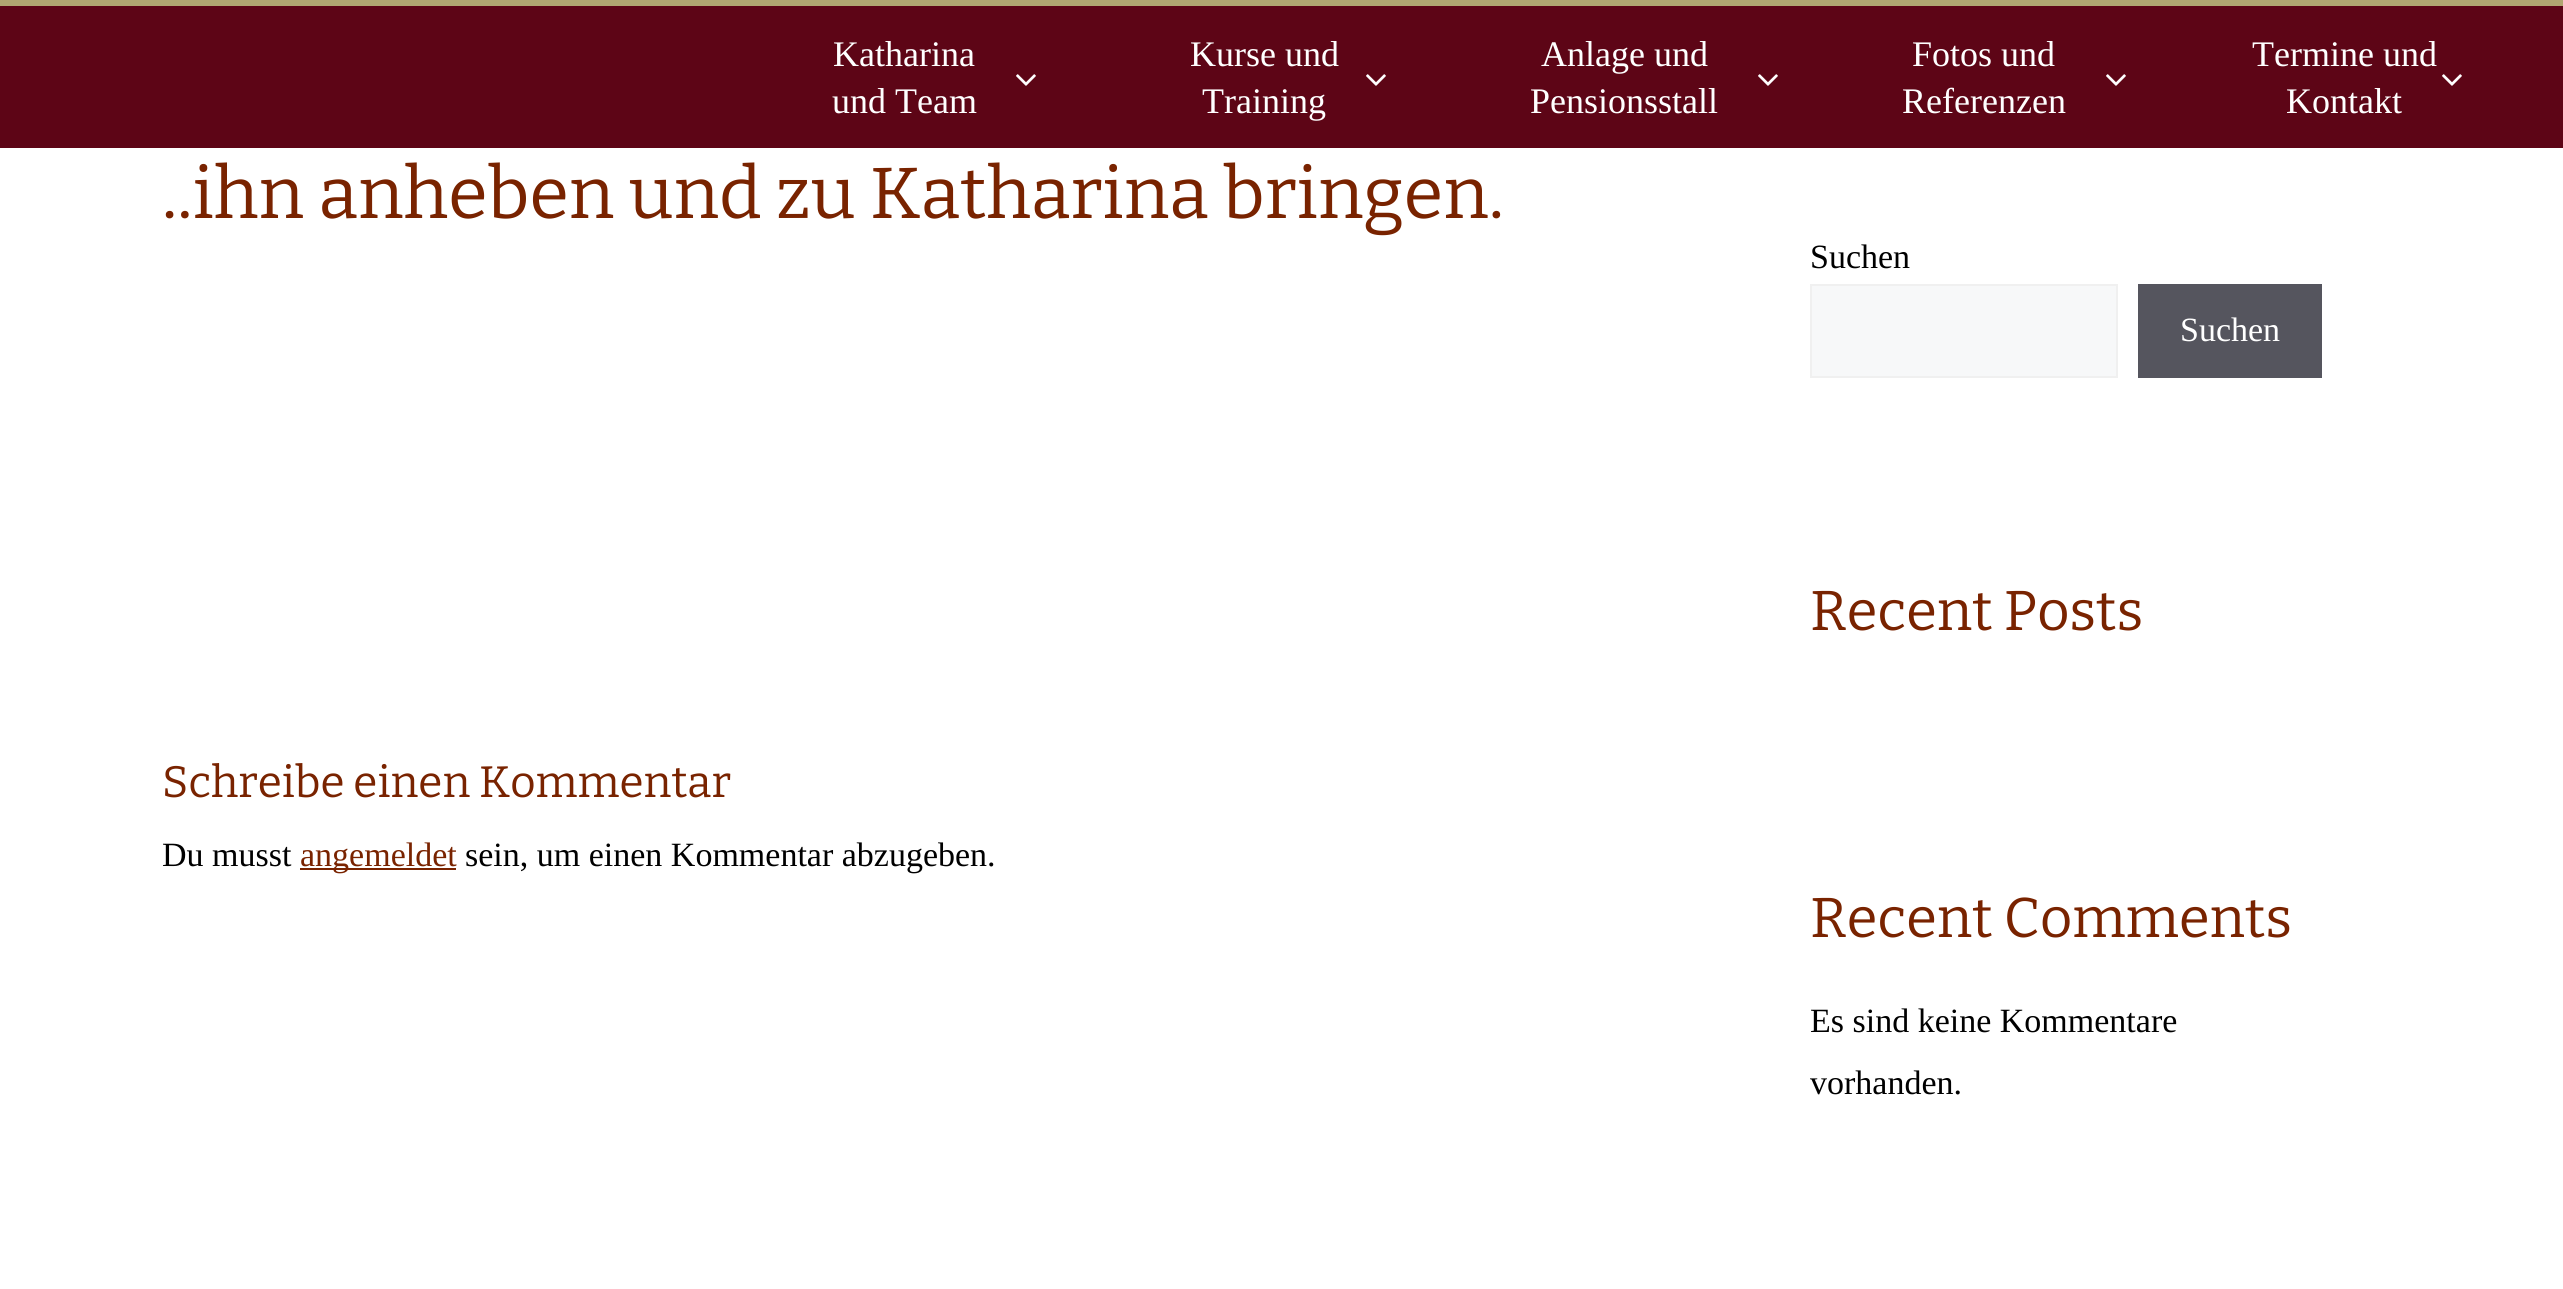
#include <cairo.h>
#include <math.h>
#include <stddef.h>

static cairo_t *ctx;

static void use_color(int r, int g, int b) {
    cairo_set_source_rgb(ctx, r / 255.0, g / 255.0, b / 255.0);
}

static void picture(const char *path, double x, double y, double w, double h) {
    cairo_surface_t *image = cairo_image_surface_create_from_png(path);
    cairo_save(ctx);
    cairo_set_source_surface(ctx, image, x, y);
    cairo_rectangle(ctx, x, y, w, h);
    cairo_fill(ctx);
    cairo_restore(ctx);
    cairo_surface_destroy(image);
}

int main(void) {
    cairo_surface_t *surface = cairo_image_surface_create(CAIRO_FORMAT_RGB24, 2563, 1289);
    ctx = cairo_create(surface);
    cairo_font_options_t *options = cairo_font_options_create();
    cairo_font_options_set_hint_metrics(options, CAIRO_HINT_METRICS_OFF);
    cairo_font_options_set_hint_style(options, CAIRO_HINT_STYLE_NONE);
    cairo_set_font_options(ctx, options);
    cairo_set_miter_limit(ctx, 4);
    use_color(255, 255, 255);
    cairo_paint(ctx);
    use_color(93, 5, 22);
    cairo_rectangle(ctx, 0, 6, 2563, 142);
    cairo_fill(ctx);
    use_color(177, 166, 113);
    cairo_rectangle(ctx, 0, 0, 2563, 6);
    cairo_fill(ctx);
    cairo_select_font_face(ctx, "Liberation Serif", CAIRO_FONT_SLANT_NORMAL, CAIRO_FONT_WEIGHT_NORMAL);
    cairo_set_font_size(ctx, 36);
    use_color(255, 255, 255);
    cairo_move_to(ctx, 833, 66);
    cairo_show_text(ctx, "Katharina");
    picture("img1.png", 1016, 74, 20, 12);
    cairo_move_to(ctx, 832, 113);
    cairo_show_text(ctx, "und Team");
    cairo_move_to(ctx, 1190, 66);
    cairo_show_text(ctx, "Kurse und");
    picture("img1.png", 1366, 74, 20, 12);
    cairo_move_to(ctx, 1202, 113);
    cairo_show_text(ctx, "Training");
    cairo_move_to(ctx, 1541, 66);
    cairo_show_text(ctx, "Anlage und");
    picture("img1.png", 1758, 74, 20, 12);
    cairo_move_to(ctx, 1530, 113);
    cairo_show_text(ctx, "Pensionsstall");
    cairo_move_to(ctx, 1912, 66);
    cairo_show_text(ctx, "Fotos und");
    picture("img1.png", 2106, 74, 20, 12);
    cairo_move_to(ctx, 1902, 113);
    cairo_show_text(ctx, "Referenzen");
    cairo_move_to(ctx, 2252, 66);
    cairo_show_text(ctx, "Termine und");
    picture("img1.png", 2442, 74, 20, 12);
    cairo_move_to(ctx, 2286, 113);
    cairo_show_text(ctx, "Kontakt");
    cairo_select_font_face(ctx, "Bitter", CAIRO_FONT_SLANT_NORMAL, CAIRO_FONT_WEIGHT_NORMAL);
    cairo_set_font_size(ctx, 72);
    use_color(121, 35, 0);
    cairo_move_to(ctx, 162, 218);
    cairo_show_text(ctx, "..ihn anheben und zu Katharina bringen.");
    cairo_set_font_size(ctx, 44);
    cairo_move_to(ctx, 162, 797);
    cairo_show_text(ctx, "Schreibe einen Kommentar");
    cairo_select_font_face(ctx, "Liberation Serif", CAIRO_FONT_SLANT_NORMAL, CAIRO_FONT_WEIGHT_NORMAL);
    cairo_set_font_size(ctx, 34);
    use_color(0, 0, 0);
    cairo_move_to(ctx, 162, 866);
    cairo_show_text(ctx, "Du musst");
    use_color(121, 35, 0);
    cairo_rectangle(ctx, 300, 868, 156, 2);
    cairo_fill(ctx);
    cairo_move_to(ctx, 300, 866);
    cairo_show_text(ctx, "angemeldet");
    use_color(0, 0, 0);
    cairo_move_to(ctx, 465, 866);
    cairo_show_text(ctx, "sein, um einen Kommentar abzugeben.");
    cairo_move_to(ctx, 1810, 268);
    cairo_show_text(ctx, "Suchen");
    use_color(247, 248, 249);
    cairo_rectangle(ctx, 1811, 285, 306, 92);
    cairo_fill_preserve(ctx);
    use_color(240, 240, 240);
    cairo_stroke(ctx);
    use_color(85, 85, 94);
    cairo_rectangle(ctx, 2138, 284, 184, 94);
    cairo_fill(ctx);
    use_color(255, 255, 255);
    cairo_move_to(ctx, 2180, 341);
    cairo_show_text(ctx, "Suchen");
    cairo_select_font_face(ctx, "Bitter", CAIRO_FONT_SLANT_NORMAL, CAIRO_FONT_WEIGHT_NORMAL);
    cairo_set_font_size(ctx, 56);
    use_color(121, 35, 0);
    cairo_move_to(ctx, 1810, 630);
    cairo_show_text(ctx, "Recent Posts");
    cairo_move_to(ctx, 1810, 937);
    cairo_show_text(ctx, "Recent Comments");
    cairo_select_font_face(ctx, "Liberation Serif", CAIRO_FONT_SLANT_NORMAL, CAIRO_FONT_WEIGHT_NORMAL);
    cairo_set_font_size(ctx, 34);
    use_color(0, 0, 0);
    cairo_move_to(ctx, 1810, 1032);
    cairo_show_text(ctx, "Es sind keine Kommentare");
    cairo_move_to(ctx, 1810, 1094);
    cairo_show_text(ctx, "vorhanden.");
    cairo_surface_write_to_png(surface, "result.png");
    cairo_font_options_destroy(options);
    cairo_destroy(ctx);
    cairo_surface_destroy(surface);
    return 0;
}
